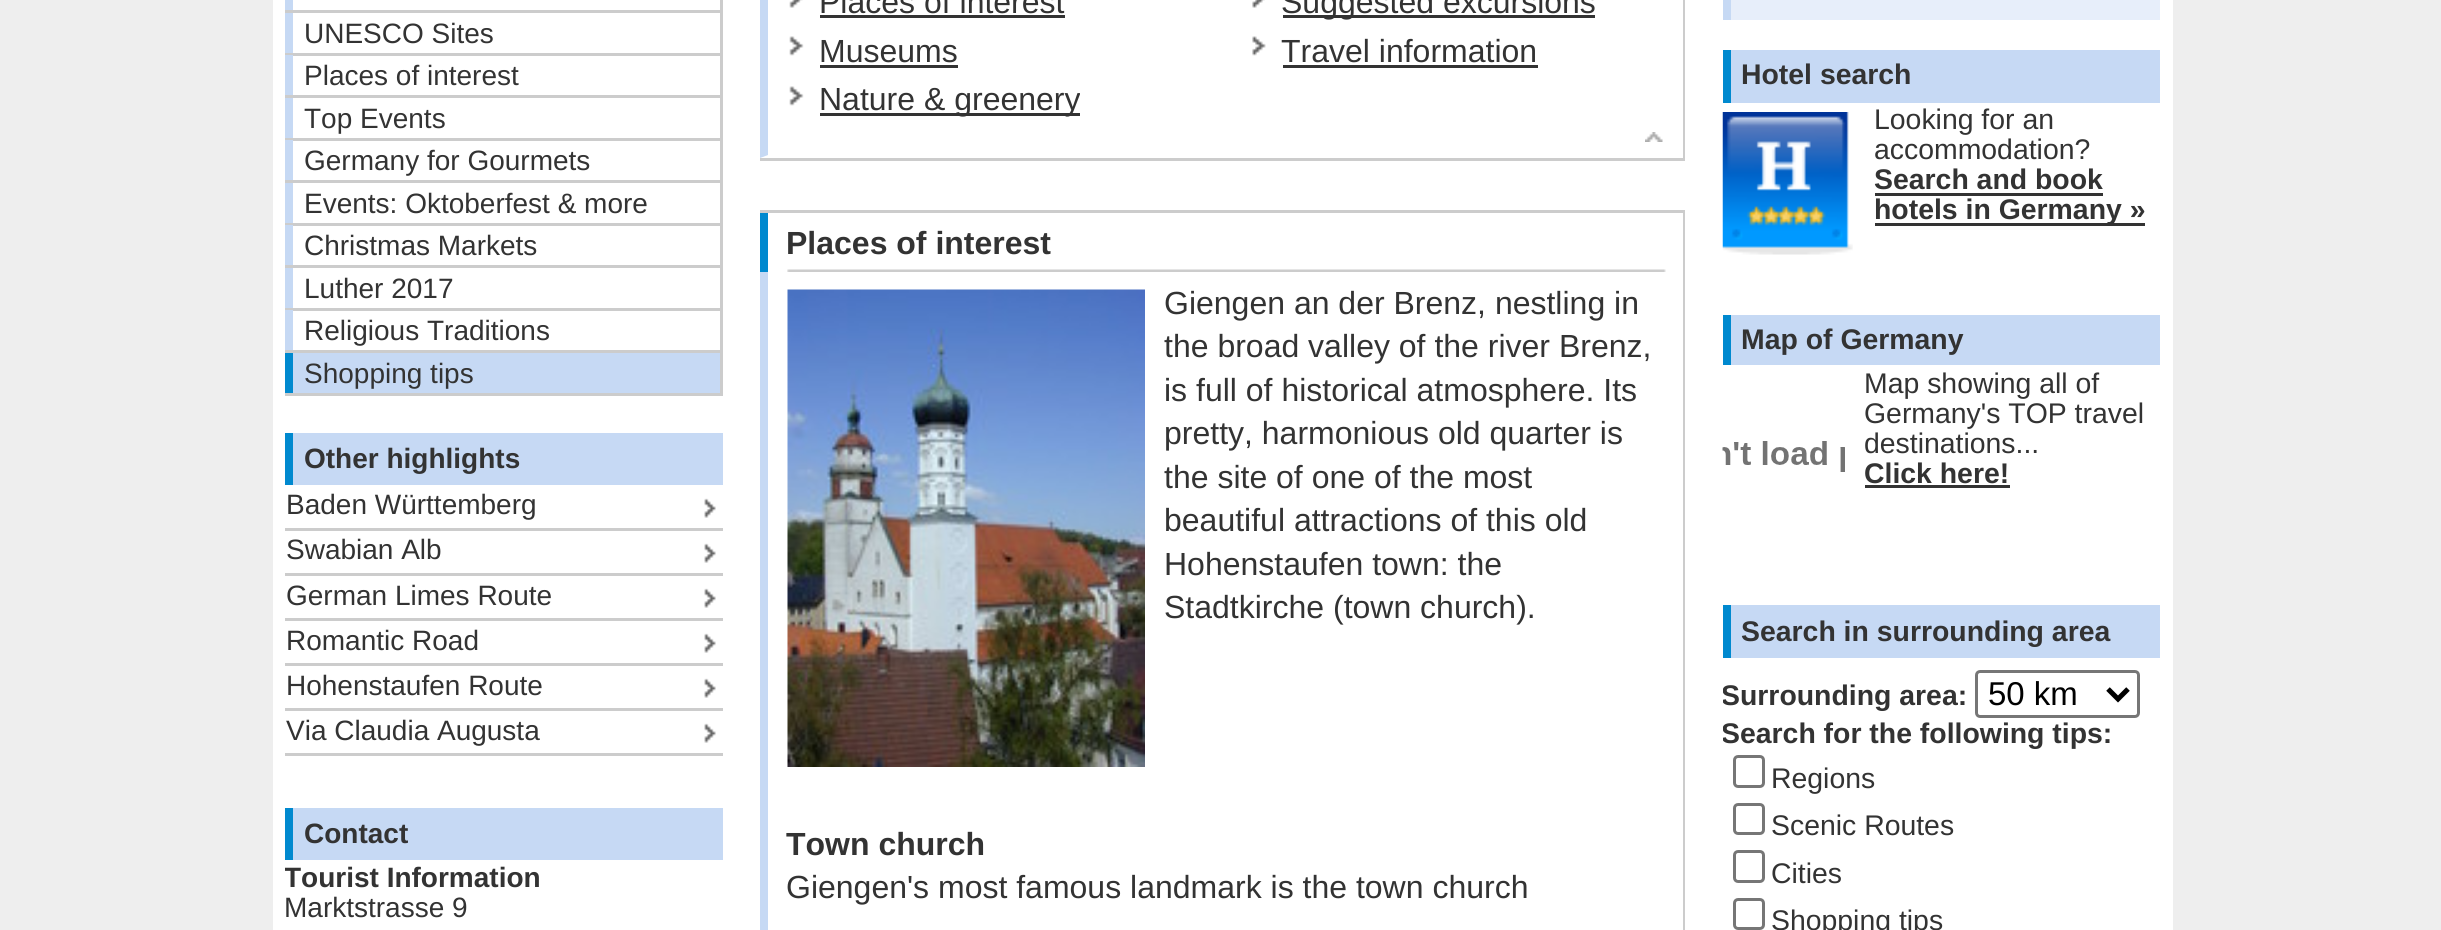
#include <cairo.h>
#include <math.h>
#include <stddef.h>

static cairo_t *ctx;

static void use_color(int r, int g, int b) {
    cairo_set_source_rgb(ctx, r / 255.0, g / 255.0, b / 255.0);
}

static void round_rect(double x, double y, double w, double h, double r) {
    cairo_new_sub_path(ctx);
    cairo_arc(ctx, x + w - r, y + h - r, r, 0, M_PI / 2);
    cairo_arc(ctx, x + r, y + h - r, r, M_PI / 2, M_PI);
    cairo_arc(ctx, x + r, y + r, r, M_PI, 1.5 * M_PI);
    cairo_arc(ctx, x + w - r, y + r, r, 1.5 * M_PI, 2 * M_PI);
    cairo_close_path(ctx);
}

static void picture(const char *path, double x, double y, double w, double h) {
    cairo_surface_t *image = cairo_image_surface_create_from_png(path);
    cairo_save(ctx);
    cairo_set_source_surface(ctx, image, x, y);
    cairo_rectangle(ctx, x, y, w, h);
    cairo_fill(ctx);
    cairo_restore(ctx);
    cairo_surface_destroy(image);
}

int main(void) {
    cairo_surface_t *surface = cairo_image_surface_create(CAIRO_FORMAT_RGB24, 2441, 930);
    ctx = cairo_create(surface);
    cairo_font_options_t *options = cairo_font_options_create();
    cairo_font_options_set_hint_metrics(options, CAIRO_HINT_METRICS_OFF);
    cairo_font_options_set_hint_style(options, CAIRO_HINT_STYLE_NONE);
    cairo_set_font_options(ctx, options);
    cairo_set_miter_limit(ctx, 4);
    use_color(238, 238, 238);
    cairo_paint(ctx);
    use_color(255, 255, 255);
    cairo_rectangle(ctx, 273, 0, 1900, 930);
    cairo_fill(ctx);
    use_color(204, 204, 204);
    cairo_rectangle(ctx, 720, 0, 3, 395);
    cairo_fill(ctx);
    cairo_rectangle(ctx, 285, 393, 438, 3);
    cairo_fill(ctx);
    use_color(198, 217, 244);
    cairo_rectangle(ctx, 285, 0, 8, 10);
    cairo_fill(ctx);
    use_color(204, 204, 204);
    cairo_rectangle(ctx, 285, 10, 435, 3);
    cairo_fill(ctx);
    use_color(198, 217, 244);
    cairo_rectangle(ctx, 285, 13, 8, 40);
    cairo_fill(ctx);
    cairo_select_font_face(ctx, "Liberation Sans", CAIRO_FONT_SLANT_NORMAL, CAIRO_FONT_WEIGHT_NORMAL);
    cairo_set_font_size(ctx, 28);
    use_color(51, 51, 51);
    cairo_move_to(ctx, 304, 43);
    cairo_show_text(ctx, "UNESCO Sites");
    use_color(204, 204, 204);
    cairo_rectangle(ctx, 285, 53, 435, 3);
    cairo_fill(ctx);
    use_color(198, 217, 244);
    cairo_rectangle(ctx, 285, 55, 8, 40);
    cairo_fill(ctx);
    use_color(51, 51, 51);
    cairo_move_to(ctx, 304, 85);
    cairo_show_text(ctx, "Places of interest");
    use_color(204, 204, 204);
    cairo_rectangle(ctx, 285, 95, 435, 3);
    cairo_fill(ctx);
    use_color(198, 217, 244);
    cairo_rectangle(ctx, 285, 98, 8, 40);
    cairo_fill(ctx);
    use_color(51, 51, 51);
    cairo_move_to(ctx, 304, 128);
    cairo_show_text(ctx, "Top Events");
    use_color(204, 204, 204);
    cairo_rectangle(ctx, 285, 138, 435, 3);
    cairo_fill(ctx);
    use_color(198, 217, 244);
    cairo_rectangle(ctx, 285, 140, 8, 40);
    cairo_fill(ctx);
    use_color(51, 51, 51);
    cairo_move_to(ctx, 304, 170);
    cairo_show_text(ctx, "Germany for Gourmets");
    use_color(204, 204, 204);
    cairo_rectangle(ctx, 285, 180, 435, 3);
    cairo_fill(ctx);
    use_color(198, 217, 244);
    cairo_rectangle(ctx, 285, 183, 8, 40);
    cairo_fill(ctx);
    use_color(51, 51, 51);
    cairo_move_to(ctx, 304, 213);
    cairo_show_text(ctx, "Events: Oktoberfest & more");
    use_color(204, 204, 204);
    cairo_rectangle(ctx, 285, 223, 435, 3);
    cairo_fill(ctx);
    use_color(198, 217, 244);
    cairo_rectangle(ctx, 285, 225, 8, 40);
    cairo_fill(ctx);
    use_color(51, 51, 51);
    cairo_move_to(ctx, 304, 255);
    cairo_show_text(ctx, "Christmas Markets");
    use_color(204, 204, 204);
    cairo_rectangle(ctx, 285, 265, 435, 3);
    cairo_fill(ctx);
    use_color(198, 217, 244);
    cairo_rectangle(ctx, 285, 268, 8, 40);
    cairo_fill(ctx);
    use_color(51, 51, 51);
    cairo_move_to(ctx, 304, 298);
    cairo_show_text(ctx, "Luther 2017");
    use_color(204, 204, 204);
    cairo_rectangle(ctx, 285, 308, 435, 3);
    cairo_fill(ctx);
    use_color(198, 217, 244);
    cairo_rectangle(ctx, 285, 310, 8, 40);
    cairo_fill(ctx);
    use_color(51, 51, 51);
    cairo_move_to(ctx, 304, 340);
    cairo_show_text(ctx, "Religious Traditions");
    use_color(204, 204, 204);
    cairo_rectangle(ctx, 285, 350, 435, 3);
    cairo_fill(ctx);
    use_color(198, 217, 244);
    cairo_rectangle(ctx, 293, 353, 427, 40);
    cairo_fill(ctx);
    use_color(0, 137, 207);
    cairo_rectangle(ctx, 285, 353, 8, 40);
    cairo_fill(ctx);
    use_color(51, 51, 51);
    cairo_move_to(ctx, 304, 383);
    cairo_show_text(ctx, "Shopping tips");
    use_color(198, 217, 244);
    cairo_rectangle(ctx, 293, 433, 430, 52);
    cairo_fill(ctx);
    use_color(0, 137, 207);
    cairo_rectangle(ctx, 285, 433, 8, 52);
    cairo_fill(ctx);
    cairo_select_font_face(ctx, "Liberation Sans", CAIRO_FONT_SLANT_NORMAL, CAIRO_FONT_WEIGHT_BOLD);
    use_color(51, 51, 51);
    cairo_move_to(ctx, 304, 468);
    cairo_show_text(ctx, "Other highlights");
    use_color(204, 204, 204);
    cairo_rectangle(ctx, 285, 528, 438, 3);
    cairo_fill(ctx);
    picture("img1.png", 704, 498, 12, 20);
    cairo_select_font_face(ctx, "Liberation Sans", CAIRO_FONT_SLANT_NORMAL, CAIRO_FONT_WEIGHT_NORMAL);
    use_color(51, 51, 51);
    cairo_move_to(ctx, 286, 514);
    cairo_show_text(ctx, "Baden Württemberg");
    use_color(204, 204, 204);
    cairo_rectangle(ctx, 285, 573, 438, 3);
    cairo_fill(ctx);
    picture("img1.png", 704, 543, 12, 20);
    use_color(51, 51, 51);
    cairo_move_to(ctx, 286, 559);
    cairo_show_text(ctx, "Swabian Alb");
    use_color(204, 204, 204);
    cairo_rectangle(ctx, 285, 618, 438, 3);
    cairo_fill(ctx);
    picture("img1.png", 704, 588, 12, 20);
    use_color(51, 51, 51);
    cairo_move_to(ctx, 286, 605);
    cairo_show_text(ctx, "German Limes Route");
    use_color(204, 204, 204);
    cairo_rectangle(ctx, 285, 663, 438, 3);
    cairo_fill(ctx);
    picture("img1.png", 704, 633, 12, 20);
    use_color(51, 51, 51);
    cairo_move_to(ctx, 286, 650);
    cairo_show_text(ctx, "Romantic Road");
    use_color(204, 204, 204);
    cairo_rectangle(ctx, 285, 708, 438, 3);
    cairo_fill(ctx);
    picture("img1.png", 704, 678, 12, 20);
    use_color(51, 51, 51);
    cairo_move_to(ctx, 286, 695);
    cairo_show_text(ctx, "Hohenstaufen Route");
    use_color(204, 204, 204);
    cairo_rectangle(ctx, 285, 753, 438, 3);
    cairo_fill(ctx);
    picture("img1.png", 704, 723, 12, 20);
    use_color(51, 51, 51);
    cairo_move_to(ctx, 286, 740);
    cairo_show_text(ctx, "Via Claudia Augusta");
    use_color(198, 217, 244);
    cairo_rectangle(ctx, 293, 808, 430, 52);
    cairo_fill(ctx);
    use_color(0, 137, 207);
    cairo_rectangle(ctx, 285, 808, 8, 52);
    cairo_fill(ctx);
    cairo_select_font_face(ctx, "Liberation Sans", CAIRO_FONT_SLANT_NORMAL, CAIRO_FONT_WEIGHT_BOLD);
    use_color(51, 51, 51);
    cairo_move_to(ctx, 304, 843);
    cairo_show_text(ctx, "Contact");
    cairo_save(ctx);
    cairo_rectangle(ctx, 285, 808, 438, 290);
    cairo_clip(ctx);
    cairo_move_to(ctx, 284, 887);
    cairo_show_text(ctx, "Tourist Information");
    cairo_restore(ctx);
    cairo_select_font_face(ctx, "Liberation Sans", CAIRO_FONT_SLANT_NORMAL, CAIRO_FONT_WEIGHT_NORMAL);
    cairo_move_to(ctx, 284, 917);
    cairo_show_text(ctx, "Marktstrasse 9");
    use_color(204, 204, 204);
    cairo_rectangle(ctx, 1683, 0, 2, 160);
    cairo_fill(ctx);
    cairo_rectangle(ctx, 760, 158, 925, 3);
    cairo_fill(ctx);
    use_color(198, 217, 244);
    cairo_new_path(ctx);
    cairo_move_to(ctx, 760, 158);
    cairo_line_to(ctx, 760, -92);
    cairo_line_to(ctx, 768, -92);
    cairo_line_to(ctx, 768, 155);
    cairo_close_path(ctx);
    cairo_fill(ctx);
    picture("img2.png", 789, 0, 14, 8);
    cairo_set_font_size(ctx, 32);
    use_color(51, 51, 51);
    cairo_move_to(ctx, 819, 13);
    cairo_show_text(ctx, "Places of interest");
    cairo_rectangle(ctx, 820, 15, 245, 3);
    cairo_fill(ctx);
    picture("img3.png", 789, 36, 15, 20);
    cairo_move_to(ctx, 819, 62);
    cairo_show_text(ctx, "Museums");
    cairo_rectangle(ctx, 820, 65, 138, 3);
    cairo_fill(ctx);
    picture("img3.png", 789, 86, 15, 20);
    cairo_rectangle(ctx, 820, 113, 260, 3);
    cairo_fill(ctx);
    cairo_move_to(ctx, 819, 110);
    cairo_show_text(ctx, "Nature & greenery");
    picture("img4.png", 1252, 0, 13, 8);
    cairo_rectangle(ctx, 1283, 15, 312, 3);
    cairo_fill(ctx);
    cairo_move_to(ctx, 1281, 13);
    cairo_show_text(ctx, "Suggested excursions");
    picture("img5.png", 1252, 36, 14, 20);
    cairo_move_to(ctx, 1281, 62);
    cairo_show_text(ctx, "Travel information");
    cairo_rectangle(ctx, 1283, 65, 255, 3);
    cairo_fill(ctx);
    picture("img6.png", 1645, 132, 18, 10);
    use_color(204, 204, 204);
    cairo_rectangle(ctx, 760, 210, 925, 3);
    cairo_fill(ctx);
    cairo_rectangle(ctx, 1683, 210, 2, 720);
    cairo_fill(ctx);
    picture("img7.png", 787, 269, 879, 3);
    use_color(0, 137, 207);
    cairo_rectangle(ctx, 760, 213, 8, 60);
    cairo_fill(ctx);
    cairo_select_font_face(ctx, "Liberation Sans", CAIRO_FONT_SLANT_NORMAL, CAIRO_FONT_WEIGHT_BOLD);
    use_color(51, 51, 51);
    cairo_move_to(ctx, 786, 254);
    cairo_show_text(ctx, "Places of interest");
    use_color(198, 217, 244);
    cairo_new_path(ctx);
    cairo_move_to(ctx, 760, 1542);
    cairo_line_to(ctx, 760, 272);
    cairo_line_to(ctx, 768, 272);
    cairo_line_to(ctx, 768, 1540);
    cairo_close_path(ctx);
    cairo_fill(ctx);
    picture("img8.png", 787, 289, 358, 478);
    cairo_select_font_face(ctx, "Liberation Sans", CAIRO_FONT_SLANT_NORMAL, CAIRO_FONT_WEIGHT_NORMAL);
    use_color(51, 51, 51);
    cairo_move_to(ctx, 1164, 314);
    cairo_show_text(ctx, "Giengen an der Brenz, nestling in");
    cairo_move_to(ctx, 1164, 357);
    cairo_show_text(ctx, "the broad valley of the river Brenz,");
    cairo_move_to(ctx, 1164, 401);
    cairo_show_text(ctx, "is full of historical atmosphere. Its");
    cairo_move_to(ctx, 1164, 444);
    cairo_show_text(ctx, "pretty, harmonious old quarter is");
    cairo_move_to(ctx, 1164, 488);
    cairo_show_text(ctx, "the site of one of the most");
    cairo_move_to(ctx, 1164, 531);
    cairo_show_text(ctx, "beautiful attractions of this old");
    cairo_move_to(ctx, 1164, 575);
    cairo_show_text(ctx, "Hohenstaufen town: the");
    cairo_move_to(ctx, 1164, 618);
    cairo_show_text(ctx, "Stadtkirche (town church).");
    cairo_select_font_face(ctx, "Liberation Sans", CAIRO_FONT_SLANT_NORMAL, CAIRO_FONT_WEIGHT_BOLD);
    cairo_move_to(ctx, 786, 855);
    cairo_show_text(ctx, "Town church");
    cairo_select_font_face(ctx, "Liberation Sans", CAIRO_FONT_SLANT_NORMAL, CAIRO_FONT_WEIGHT_NORMAL);
    cairo_move_to(ctx, 786, 898);
    cairo_show_text(ctx, "Giengen's most famous landmark is the town church");
    use_color(231, 238, 250);
    cairo_rectangle(ctx, 1731, 0, 429, 20);
    cairo_fill(ctx);
    use_color(198, 217, 244);
    cairo_rectangle(ctx, 1723, 0, 8, 20);
    cairo_fill(ctx);
    cairo_rectangle(ctx, 1731, 50, 429, 53);
    cairo_fill(ctx);
    use_color(0, 137, 207);
    cairo_rectangle(ctx, 1723, 50, 8, 53);
    cairo_fill(ctx);
    cairo_select_font_face(ctx, "Liberation Sans", CAIRO_FONT_SLANT_NORMAL, CAIRO_FONT_WEIGHT_BOLD);
    cairo_set_font_size(ctx, 28.4);
    use_color(51, 51, 51);
    cairo_move_to(ctx, 1741, 84);
    cairo_show_text(ctx, "Hotel search");
    picture("img9.png", 1722, 112, 131, 143);
    cairo_select_font_face(ctx, "Liberation Sans", CAIRO_FONT_SLANT_NORMAL, CAIRO_FONT_WEIGHT_NORMAL);
    cairo_move_to(ctx, 1874, 129);
    cairo_show_text(ctx, "Looking for an");
    cairo_move_to(ctx, 1874, 159);
    cairo_show_text(ctx, "accommodation?");
    cairo_select_font_face(ctx, "Liberation Sans", CAIRO_FONT_SLANT_NORMAL, CAIRO_FONT_WEIGHT_BOLD);
    cairo_move_to(ctx, 1874, 189);
    cairo_show_text(ctx, "Search and book");
    cairo_rectangle(ctx, 1875, 193, 228, 3);
    cairo_fill(ctx);
    cairo_rectangle(ctx, 1875, 223, 270, 3);
    cairo_fill(ctx);
    cairo_move_to(ctx, 1874, 219);
    cairo_show_text(ctx, "hotels in Germany »");
    use_color(198, 217, 244);
    cairo_rectangle(ctx, 1731, 315, 429, 50);
    cairo_fill(ctx);
    use_color(0, 137, 207);
    cairo_rectangle(ctx, 1723, 315, 8, 50);
    cairo_fill(ctx);
    use_color(51, 51, 51);
    cairo_move_to(ctx, 1741, 349);
    cairo_show_text(ctx, "Map of Germany");
    cairo_select_font_face(ctx, "Liberation Sans", CAIRO_FONT_SLANT_NORMAL, CAIRO_FONT_WEIGHT_NORMAL);
    cairo_move_to(ctx, 1864, 393);
    cairo_show_text(ctx, "Map showing all of");
    cairo_move_to(ctx, 1864, 423);
    cairo_show_text(ctx, "Germany's TOP travel");
    picture("img10.png", 1722, 441, 123, 31);
    cairo_move_to(ctx, 1864, 453);
    cairo_show_text(ctx, "destinations...");
    cairo_select_font_face(ctx, "Liberation Sans", CAIRO_FONT_SLANT_NORMAL, CAIRO_FONT_WEIGHT_BOLD);
    cairo_move_to(ctx, 1864, 483);
    cairo_show_text(ctx, "Click here!");
    cairo_rectangle(ctx, 1865, 485, 145, 3);
    cairo_fill(ctx);
    use_color(198, 217, 244);
    cairo_rectangle(ctx, 1731, 605, 429, 53);
    cairo_fill(ctx);
    use_color(0, 137, 207);
    cairo_rectangle(ctx, 1723, 605, 8, 53);
    cairo_fill(ctx);
    use_color(51, 51, 51);
    cairo_move_to(ctx, 1741, 641);
    cairo_show_text(ctx, "Search in surrounding area");
    cairo_save(ctx);
    cairo_rectangle(ctx, 1723, 0, 437, 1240);
    cairo_clip(ctx);
    cairo_move_to(ctx, 1721, 705);
    cairo_show_text(ctx, "Surrounding area:");
    cairo_restore(ctx);
    round_rect(1976.5, 671.5, 162, 45, 3.5);
    use_color(118, 118, 118);
    cairo_set_line_width(ctx, 3);
    cairo_stroke(ctx);
    cairo_new_path(ctx);
    cairo_move_to(ctx, 2108, 689);
    cairo_line_to(ctx, 2118, 699);
    cairo_line_to(ctx, 2128, 689);
    use_color(0, 0, 0);
    cairo_set_line_width(ctx, 5);
    cairo_stroke(ctx);
    cairo_select_font_face(ctx, "Liberation Sans", CAIRO_FONT_SLANT_NORMAL, CAIRO_FONT_WEIGHT_NORMAL);
    cairo_set_font_size(ctx, 33);
    cairo_move_to(ctx, 1988, 705);
    cairo_show_text(ctx, "50 km");
    cairo_save(ctx);
    cairo_rectangle(ctx, 1723, 0, 437, 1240);
    cairo_clip(ctx);
    cairo_select_font_face(ctx, "Liberation Sans", CAIRO_FONT_SLANT_NORMAL, CAIRO_FONT_WEIGHT_BOLD);
    cairo_set_font_size(ctx, 28.4);
    use_color(51, 51, 51);
    cairo_move_to(ctx, 1721, 743);
    cairo_show_text(ctx, "Search for the following tips:");
    cairo_restore(ctx);
    round_rect(1734.5, 756.5, 29, 30, 3.5);
    use_color(118, 118, 118);
    cairo_set_line_width(ctx, 3);
    cairo_stroke(ctx);
    cairo_set_font_size(ctx, 28.4);
    use_color(51, 51, 51);
    cairo_move_to(ctx, 1771, 788);
    cairo_show_text(ctx, "Regions");
    round_rect(1734.5, 804.5, 29, 29, 3.5);
    use_color(118, 118, 118);
    cairo_stroke(ctx);
    use_color(51, 51, 51);
    cairo_move_to(ctx, 1771, 835);
    cairo_show_text(ctx, "Scenic Routes");
    round_rect(1734.5, 851.5, 29, 30, 3.5);
    use_color(118, 118, 118);
    cairo_stroke(ctx);
    use_color(51, 51, 51);
    cairo_move_to(ctx, 1771, 883);
    cairo_show_text(ctx, "Cities");
    round_rect(1734.5, 899.5, 29, 29, 3.5);
    use_color(118, 118, 118);
    cairo_stroke(ctx);
    use_color(51, 51, 51);
    cairo_move_to(ctx, 1771, 930);
    cairo_show_text(ctx, "Shopping tips");
    cairo_surface_write_to_png(surface, "result.png");
    cairo_font_options_destroy(options);
    cairo_destroy(ctx);
    cairo_surface_destroy(surface);
    return 0;
}
